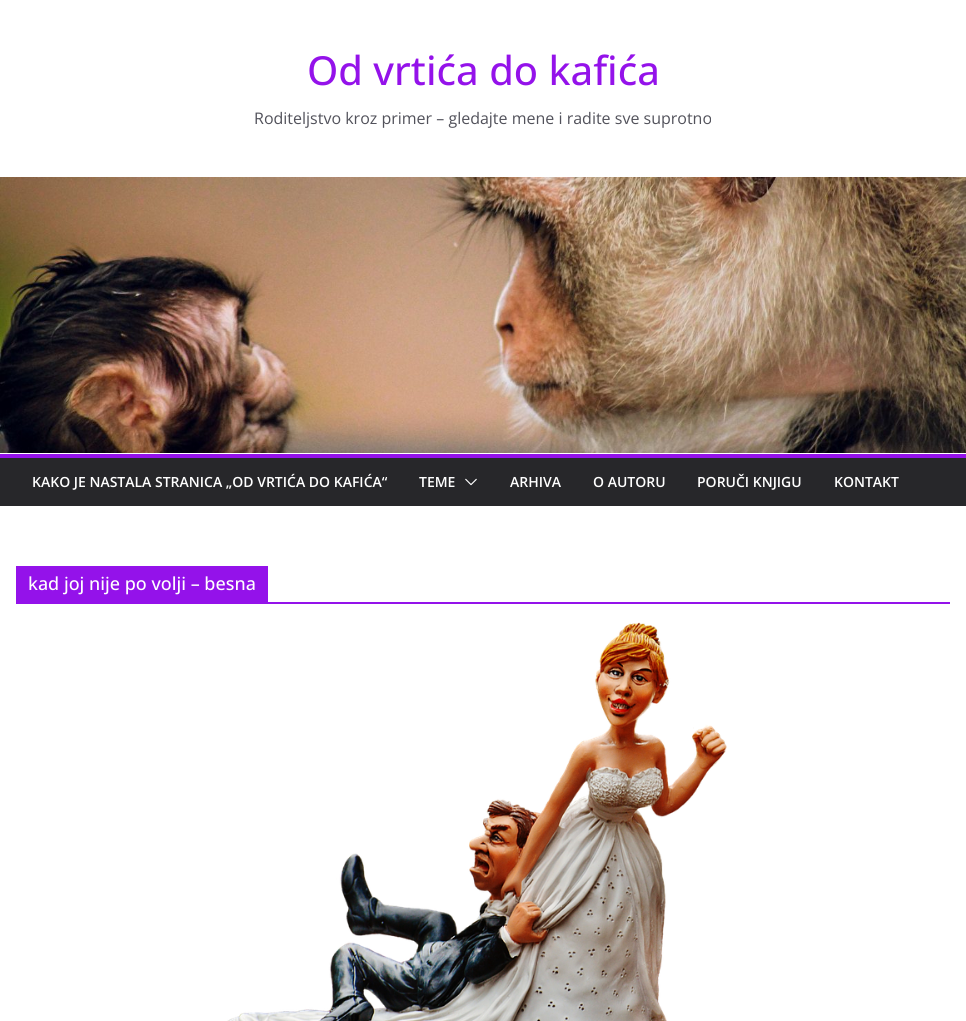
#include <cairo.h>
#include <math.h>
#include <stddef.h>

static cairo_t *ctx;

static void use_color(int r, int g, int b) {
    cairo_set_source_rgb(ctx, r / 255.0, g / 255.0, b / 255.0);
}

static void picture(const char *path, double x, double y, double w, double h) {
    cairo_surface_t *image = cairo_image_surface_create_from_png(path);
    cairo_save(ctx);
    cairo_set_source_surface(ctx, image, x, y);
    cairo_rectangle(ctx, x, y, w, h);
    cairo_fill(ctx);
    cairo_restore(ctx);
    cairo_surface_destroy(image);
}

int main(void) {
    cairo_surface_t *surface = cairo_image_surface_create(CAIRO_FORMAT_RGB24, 966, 1021);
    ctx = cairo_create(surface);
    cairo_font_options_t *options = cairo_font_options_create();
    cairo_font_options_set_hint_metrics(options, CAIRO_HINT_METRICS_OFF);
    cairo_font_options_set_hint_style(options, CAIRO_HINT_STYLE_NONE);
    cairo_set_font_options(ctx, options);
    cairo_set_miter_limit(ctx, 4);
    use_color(255, 255, 255);
    cairo_paint(ctx);
    cairo_select_font_face(ctx, "Open Sans Medium", CAIRO_FONT_SLANT_NORMAL, CAIRO_FONT_WEIGHT_NORMAL);
    cairo_set_font_size(ctx, 40);
    use_color(148, 18, 234);
    cairo_move_to(ctx, 307, 85);
    cairo_show_text(ctx, "Od vrtića do kafića");
    cairo_select_font_face(ctx, "Open Sans", CAIRO_FONT_SLANT_NORMAL, CAIRO_FONT_WEIGHT_NORMAL);
    cairo_set_font_size(ctx, 16);
    use_color(82, 82, 91);
    cairo_move_to(ctx, 254, 124);
    cairo_show_text(ctx, "Roditeljstvo kroz primer – gledajte mene i radite sve suprotno");
    picture("img1.png", 0, 177, 966, 276);
    use_color(39, 39, 42);
    cairo_rectangle(ctx, 0, 458, 966, 48);
    cairo_fill(ctx);
    use_color(148, 18, 234);
    cairo_rectangle(ctx, 0, 454, 966, 4);
    cairo_fill(ctx);
    cairo_select_font_face(ctx, "Open Sans SemiBold", CAIRO_FONT_SLANT_NORMAL, CAIRO_FONT_WEIGHT_NORMAL);
    cairo_set_font_size(ctx, 14);
    use_color(255, 255, 255);
    cairo_move_to(ctx, 32, 487);
    cairo_show_text(ctx, "KAKO JE NASTALA STRANICA „OD VRTIĆA DO KAFIĆA“");
    cairo_move_to(ctx, 419, 487);
    cairo_show_text(ctx, "TEME");
    picture("img2.png", 465, 478, 12, 8);
    cairo_move_to(ctx, 510, 487);
    cairo_show_text(ctx, "ARHIVA");
    cairo_move_to(ctx, 593, 487);
    cairo_show_text(ctx, "O AUTORU");
    cairo_move_to(ctx, 697, 487);
    cairo_show_text(ctx, "PORUČI KNJIGU");
    cairo_move_to(ctx, 834, 487);
    cairo_show_text(ctx, "KONTAKT");
    use_color(148, 18, 234);
    cairo_rectangle(ctx, 16, 602, 934, 2);
    cairo_fill(ctx);
    cairo_rectangle(ctx, 16, 566, 252, 36);
    cairo_fill(ctx);
    cairo_select_font_face(ctx, "Open Sans Medium", CAIRO_FONT_SLANT_NORMAL, CAIRO_FONT_WEIGHT_NORMAL);
    cairo_set_font_size(ctx, 18);
    use_color(255, 255, 255);
    cairo_move_to(ctx, 28, 590);
    cairo_show_text(ctx, "kad joj nije po volji – besna");
    picture("img3.png", 227, 622, 500, 399);
    cairo_surface_write_to_png(surface, "result.png");
    cairo_font_options_destroy(options);
    cairo_destroy(ctx);
    cairo_surface_destroy(surface);
    return 0;
}
